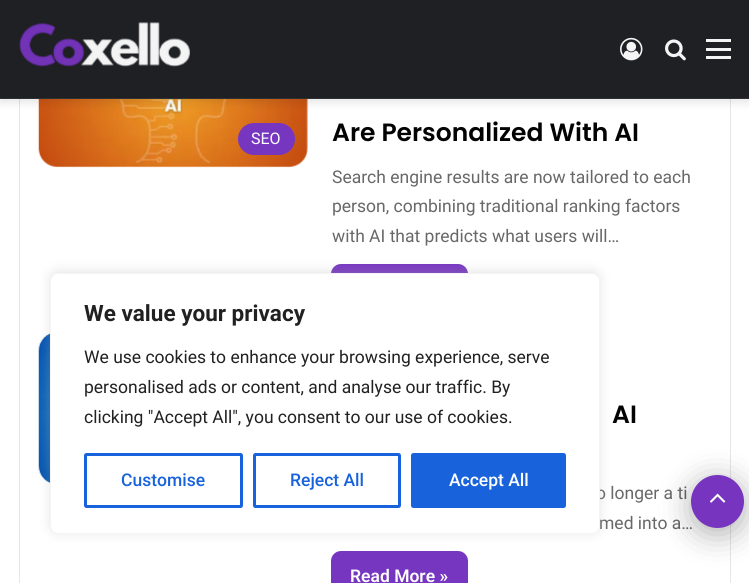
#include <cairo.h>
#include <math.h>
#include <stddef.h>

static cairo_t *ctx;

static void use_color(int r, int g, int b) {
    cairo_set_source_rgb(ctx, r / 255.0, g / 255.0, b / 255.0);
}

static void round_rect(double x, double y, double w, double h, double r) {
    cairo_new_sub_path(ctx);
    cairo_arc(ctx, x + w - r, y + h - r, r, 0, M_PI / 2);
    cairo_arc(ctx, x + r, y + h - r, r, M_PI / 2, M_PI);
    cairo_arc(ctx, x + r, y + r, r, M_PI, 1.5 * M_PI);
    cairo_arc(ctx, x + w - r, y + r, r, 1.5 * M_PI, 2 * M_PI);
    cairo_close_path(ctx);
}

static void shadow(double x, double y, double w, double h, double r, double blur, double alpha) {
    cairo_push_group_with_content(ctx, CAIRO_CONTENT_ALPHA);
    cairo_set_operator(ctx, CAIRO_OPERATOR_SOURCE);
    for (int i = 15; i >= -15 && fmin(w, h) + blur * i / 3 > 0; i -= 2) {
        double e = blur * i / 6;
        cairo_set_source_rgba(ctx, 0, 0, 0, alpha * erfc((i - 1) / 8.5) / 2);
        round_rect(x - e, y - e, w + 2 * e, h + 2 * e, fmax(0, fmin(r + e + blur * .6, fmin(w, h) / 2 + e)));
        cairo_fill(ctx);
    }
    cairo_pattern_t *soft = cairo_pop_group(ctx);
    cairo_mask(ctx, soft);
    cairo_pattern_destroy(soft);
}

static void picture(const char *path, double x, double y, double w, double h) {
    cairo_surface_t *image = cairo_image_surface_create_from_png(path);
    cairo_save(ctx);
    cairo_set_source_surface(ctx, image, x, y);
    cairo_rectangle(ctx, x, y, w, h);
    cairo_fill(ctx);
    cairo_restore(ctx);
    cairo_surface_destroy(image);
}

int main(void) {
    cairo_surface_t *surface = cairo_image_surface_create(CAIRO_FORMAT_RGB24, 749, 583);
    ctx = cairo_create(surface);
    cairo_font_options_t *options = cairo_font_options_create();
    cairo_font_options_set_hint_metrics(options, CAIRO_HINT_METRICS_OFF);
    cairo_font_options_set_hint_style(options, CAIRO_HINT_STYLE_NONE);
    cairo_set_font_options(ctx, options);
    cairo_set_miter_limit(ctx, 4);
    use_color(255, 255, 255);
    cairo_paint(ctx);
    cairo_rectangle(ctx, 19.5, -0.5, 711, 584);
    use_color(230, 230, 230);
    cairo_set_line_width(ctx, 1);
    cairo_stroke(ctx);
    picture("img4.png", 38, 99, 270, 69);
    use_color(0, 0, 0);
    shadow(0, 4, 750, 99, 0, 4.5, 0.1);
    use_color(31, 32, 36);
    cairo_rectangle(ctx, 0, 0, 749, 98);
    cairo_fill(ctx);
    use_color(47, 48, 51);
    cairo_rectangle(ctx, 0, 98, 749, 1);
    cairo_fill(ctx);
    picture("img1.png", 19, 22, 171, 45);
    picture("img2.png", 620, 37, 23, 24);
    picture("img3.png", 665, 39, 21, 22);
    use_color(244, 244, 244);
    cairo_rectangle(ctx, 706, 48, 25, 3);
    cairo_fill(ctx);
    cairo_rectangle(ctx, 706, 39, 25, 3);
    cairo_fill(ctx);
    cairo_rectangle(ctx, 706, 56, 25, 3);
    cairo_fill(ctx);
    use_color(119, 54, 192);
    round_rect(238, 123, 57, 32, 16);
    cairo_fill(ctx);
    cairo_select_font_face(ctx, "Roboto", CAIRO_FONT_SLANT_NORMAL, CAIRO_FONT_WEIGHT_NORMAL);
    cairo_set_font_size(ctx, 16);
    use_color(255, 255, 255);
    cairo_move_to(ctx, 251, 144);
    cairo_show_text(ctx, "SEO");
    cairo_select_font_face(ctx, "Poppins SemiBold", CAIRO_FONT_SLANT_NORMAL, CAIRO_FONT_WEIGHT_NORMAL);
    cairo_set_font_size(ctx, 25);
    use_color(3, 3, 3);
    cairo_move_to(ctx, 332, 141);
    cairo_show_text(ctx, "Are Personalized With AI");
    cairo_select_font_face(ctx, "Roboto", CAIRO_FONT_SLANT_NORMAL, CAIRO_FONT_WEIGHT_NORMAL);
    cairo_set_font_size(ctx, 17.5);
    use_color(104, 104, 104);
    cairo_move_to(ctx, 332, 183);
    cairo_show_text(ctx, "Search engine results are now tailored to each");
    cairo_move_to(ctx, 332, 212);
    cairo_show_text(ctx, "person, combining traditional ranking factors");
    cairo_move_to(ctx, 332, 242);
    cairo_show_text(ctx, "with AI that predicts what users will…");
    use_color(119, 54, 192);
    round_rect(331, 264, 137, 51, 10);
    cairo_fill(ctx);
    picture("img5.png", 38, 333, 12, 150);
    cairo_select_font_face(ctx, "Poppins SemiBold", CAIRO_FONT_SLANT_NORMAL, CAIRO_FONT_WEIGHT_NORMAL);
    cairo_set_font_size(ctx, 25);
    use_color(3, 3, 3);
    cairo_move_to(ctx, 612, 423);
    cairo_show_text(ctx, "AI");
    cairo_select_font_face(ctx, "Roboto", CAIRO_FONT_SLANT_NORMAL, CAIRO_FONT_WEIGHT_NORMAL);
    cairo_set_font_size(ctx, 17.5);
    use_color(104, 104, 104);
    cairo_move_to(ctx, 596, 499);
    cairo_show_text(ctx, "o longer a ti");
    cairo_move_to(ctx, 599, 529);
    cairo_show_text(ctx, "med into a…");
    use_color(119, 54, 192);
    round_rect(331, 551, 137, 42, 10);
    cairo_fill(ctx);
    cairo_select_font_face(ctx, "Roboto SemiBold", CAIRO_FONT_SLANT_NORMAL, CAIRO_FONT_WEIGHT_NORMAL);
    use_color(255, 255, 255);
    cairo_move_to(ctx, 350, 582);
    cairo_show_text(ctx, "Read More »");
    use_color(0, 0, 0);
    shadow(691, 481, 53, 53, 26.5, 15.5, 0.3);
    use_color(118, 52, 191);
    cairo_arc(ctx, 717.5, 501.5, 26.5, 0, 2 * M_PI);
    cairo_fill(ctx);
    picture("img6.png", 710, 493, 16, 10);
    use_color(172, 171, 171);
    shadow(50, 271, 550, 262, 8, 6, 0.3);
    use_color(255, 255, 255);
    round_rect(50.5, 273.5, 549, 260, 7.5);
    cairo_fill_preserve(ctx);
    use_color(244, 244, 244);
    cairo_stroke(ctx);
    cairo_select_font_face(ctx, "Roboto", CAIRO_FONT_SLANT_NORMAL, CAIRO_FONT_WEIGHT_BOLD);
    cairo_set_font_size(ctx, 22.5);
    use_color(33, 33, 33);
    cairo_move_to(ctx, 84, 321);
    cairo_show_text(ctx, "We value your privacy");
    cairo_select_font_face(ctx, "Roboto", CAIRO_FONT_SLANT_NORMAL, CAIRO_FONT_WEIGHT_NORMAL);
    cairo_set_font_size(ctx, 17.5);
    cairo_move_to(ctx, 84, 363);
    cairo_show_text(ctx, "We use cookies to enhance your browsing experience, serve");
    cairo_move_to(ctx, 84, 393);
    cairo_show_text(ctx, "personalised ads or content, and analyse our traffic. By");
    cairo_move_to(ctx, 84, 423);
    cairo_show_text(ctx, "clicking \"Accept All\", you consent to our use of cookies.");
    round_rect(85.5, 454.5, 156, 52, 1);
    use_color(24, 99, 220);
    cairo_set_line_width(ctx, 3);
    cairo_stroke(ctx);
    cairo_select_font_face(ctx, "Roboto Medium", CAIRO_FONT_SLANT_NORMAL, CAIRO_FONT_WEIGHT_NORMAL);
    cairo_move_to(ctx, 121, 486);
    cairo_show_text(ctx, "Customise");
    round_rect(254.5, 454.5, 145, 52, 1);
    cairo_stroke(ctx);
    cairo_move_to(ctx, 290, 486);
    cairo_show_text(ctx, "Reject All");
    round_rect(412.5, 454.5, 152, 52, 1);
    cairo_fill_preserve(ctx);
    cairo_stroke(ctx);
    use_color(255, 255, 255);
    cairo_move_to(ctx, 449, 486);
    cairo_show_text(ctx, "Accept All");
    cairo_surface_write_to_png(surface, "result.png");
    cairo_font_options_destroy(options);
    cairo_destroy(ctx);
    cairo_surface_destroy(surface);
    return 0;
}
